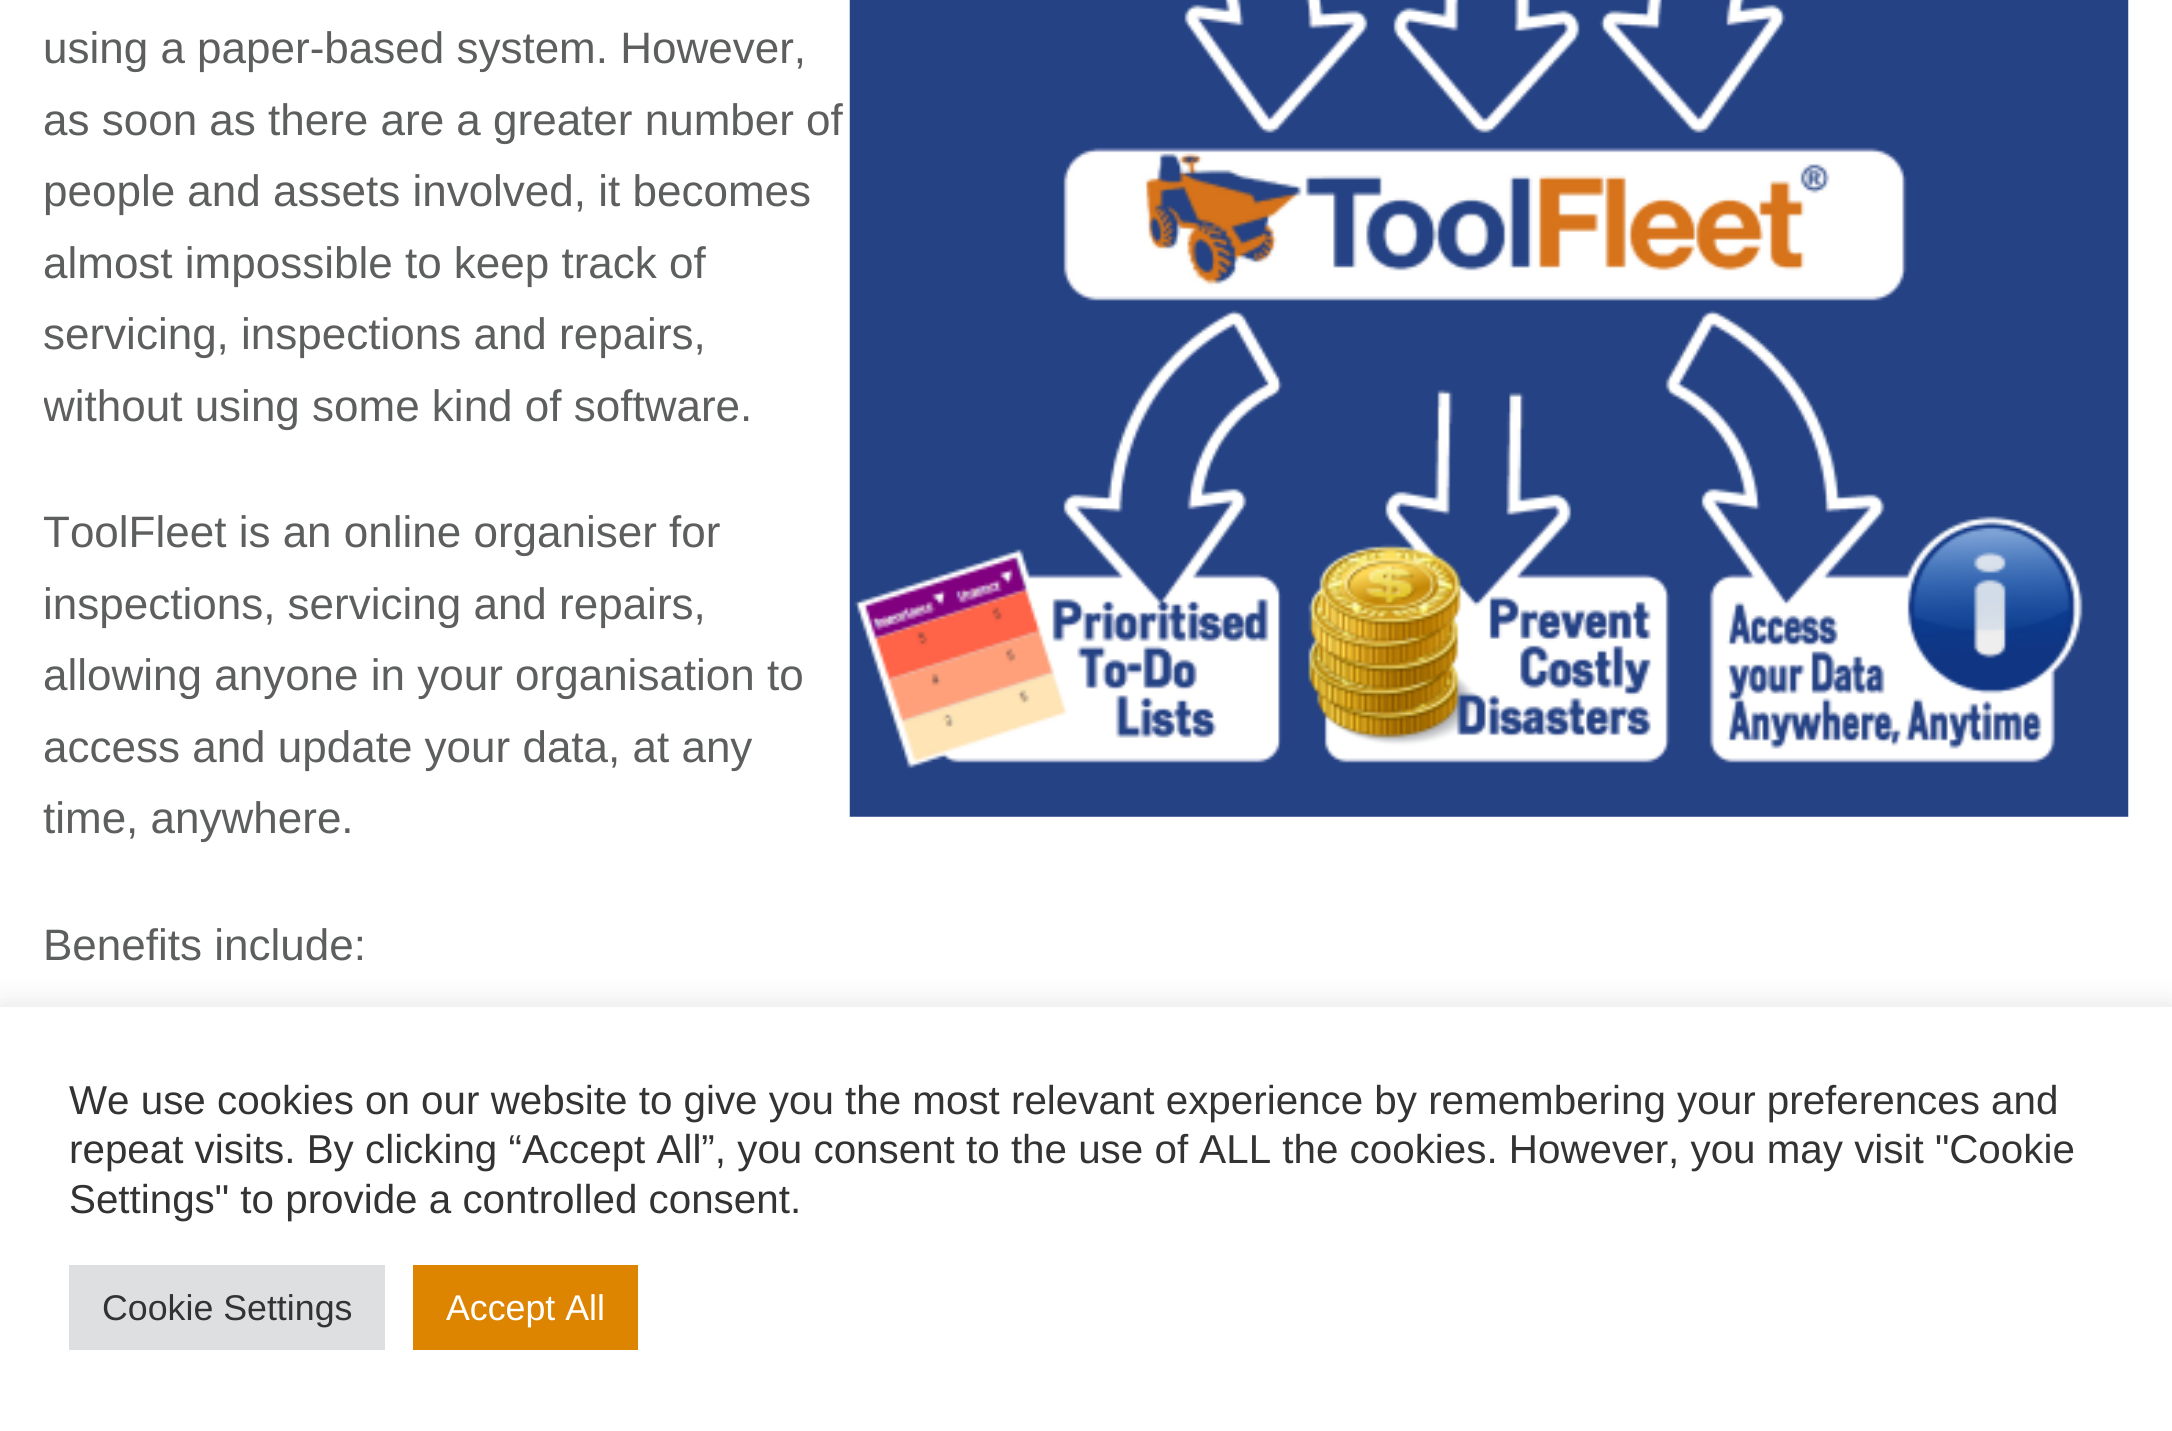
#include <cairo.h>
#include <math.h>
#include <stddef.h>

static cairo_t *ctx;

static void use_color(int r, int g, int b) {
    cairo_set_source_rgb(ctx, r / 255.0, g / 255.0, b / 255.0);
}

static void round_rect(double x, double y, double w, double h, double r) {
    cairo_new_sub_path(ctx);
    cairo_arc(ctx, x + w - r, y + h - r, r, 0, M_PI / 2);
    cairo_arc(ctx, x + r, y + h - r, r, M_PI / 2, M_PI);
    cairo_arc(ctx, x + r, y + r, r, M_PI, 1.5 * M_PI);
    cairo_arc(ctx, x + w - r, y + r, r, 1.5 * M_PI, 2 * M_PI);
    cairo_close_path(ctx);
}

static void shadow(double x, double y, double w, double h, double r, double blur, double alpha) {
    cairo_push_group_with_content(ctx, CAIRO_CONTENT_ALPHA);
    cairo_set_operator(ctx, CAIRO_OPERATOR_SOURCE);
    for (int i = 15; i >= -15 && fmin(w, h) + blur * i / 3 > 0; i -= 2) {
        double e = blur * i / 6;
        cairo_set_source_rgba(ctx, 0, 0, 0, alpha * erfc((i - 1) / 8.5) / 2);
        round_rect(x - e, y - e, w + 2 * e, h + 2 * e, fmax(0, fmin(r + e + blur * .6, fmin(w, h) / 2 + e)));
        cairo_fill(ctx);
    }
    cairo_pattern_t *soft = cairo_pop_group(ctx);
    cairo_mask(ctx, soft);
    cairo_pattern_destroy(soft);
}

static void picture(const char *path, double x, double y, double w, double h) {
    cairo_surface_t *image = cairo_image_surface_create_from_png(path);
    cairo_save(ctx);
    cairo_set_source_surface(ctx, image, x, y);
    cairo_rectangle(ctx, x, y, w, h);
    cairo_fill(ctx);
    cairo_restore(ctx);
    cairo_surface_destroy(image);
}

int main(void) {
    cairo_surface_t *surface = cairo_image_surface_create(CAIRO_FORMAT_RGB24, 2172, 1431);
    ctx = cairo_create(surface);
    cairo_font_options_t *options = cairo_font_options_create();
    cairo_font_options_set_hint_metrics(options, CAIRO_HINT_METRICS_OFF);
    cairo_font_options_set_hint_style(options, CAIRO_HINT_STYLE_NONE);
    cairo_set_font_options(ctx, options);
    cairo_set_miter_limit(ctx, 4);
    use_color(255, 255, 255);
    cairo_paint(ctx);
    cairo_select_font_face(ctx, "Liberation Sans", CAIRO_FONT_SLANT_NORMAL, CAIRO_FONT_WEIGHT_NORMAL);
    cairo_set_font_size(ctx, 44);
    use_color(93, 94, 94);
    cairo_move_to(ctx, 43, 63);
    cairo_show_text(ctx, "using a paper-based system. However,");
    picture("img1.png", 849, 0, 1280, 817);
    cairo_move_to(ctx, 43, 135);
    cairo_show_text(ctx, "as soon as there are a greater number of");
    cairo_move_to(ctx, 43, 206);
    cairo_show_text(ctx, "people and assets involved, it becomes");
    cairo_move_to(ctx, 43, 278);
    cairo_show_text(ctx, "almost impossible to keep track of");
    cairo_move_to(ctx, 43, 349);
    cairo_show_text(ctx, "servicing, inspections and repairs,");
    cairo_save(ctx);
    cairo_rectangle(ctx, 44, 0, 2085, 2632);
    cairo_clip(ctx);
    cairo_move_to(ctx, 43, 421);
    cairo_show_text(ctx, "without using some kind of software.");
    cairo_restore(ctx);
    cairo_move_to(ctx, 43, 547);
    cairo_show_text(ctx, "ToolFleet is an online organiser for");
    cairo_move_to(ctx, 43, 619);
    cairo_show_text(ctx, "inspections, servicing and repairs,");
    cairo_move_to(ctx, 43, 690);
    cairo_show_text(ctx, "allowing anyone in your organisation to");
    cairo_move_to(ctx, 43, 762);
    cairo_show_text(ctx, "access and update your data, at any");
    cairo_move_to(ctx, 43, 833);
    cairo_show_text(ctx, "time, anywhere.");
    cairo_move_to(ctx, 43, 960);
    cairo_show_text(ctx, "Benefits include:");
    use_color(172, 171, 171);
    shadow(0, 1004, 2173, 426, 0, 14, 0.3);
    use_color(255, 255, 255);
    cairo_rectangle(ctx, 0, 1007, 2172, 424);
    cairo_fill(ctx);
    cairo_set_font_size(ctx, 40.35);
    use_color(51, 51, 51);
    cairo_move_to(ctx, 69, 1114);
    cairo_show_text(ctx, "We use cookies on our website to give you the most relevant experience by remembering your preferences and");
    cairo_move_to(ctx, 69, 1163);
    cairo_show_text(ctx, "repeat visits. By clicking “Accept All”, you consent to the use of ALL the cookies. However, you may visit \"Cookie");
    cairo_move_to(ctx, 69, 1213);
    cairo_show_text(ctx, "Settings\" to provide a controlled consent.");
    use_color(222, 223, 224);
    cairo_rectangle(ctx, 69, 1265, 316, 85);
    cairo_fill(ctx);
    cairo_set_font_size(ctx, 35.75);
    use_color(51, 51, 51);
    cairo_move_to(ctx, 102, 1320);
    cairo_show_text(ctx, "Cookie Settings");
    use_color(221, 133, 0);
    cairo_rectangle(ctx, 413, 1265, 225, 85);
    cairo_fill(ctx);
    use_color(255, 255, 255);
    cairo_move_to(ctx, 446, 1320);
    cairo_show_text(ctx, "Accept All");
    cairo_surface_write_to_png(surface, "result.png");
    cairo_font_options_destroy(options);
    cairo_destroy(ctx);
    cairo_surface_destroy(surface);
    return 0;
}
